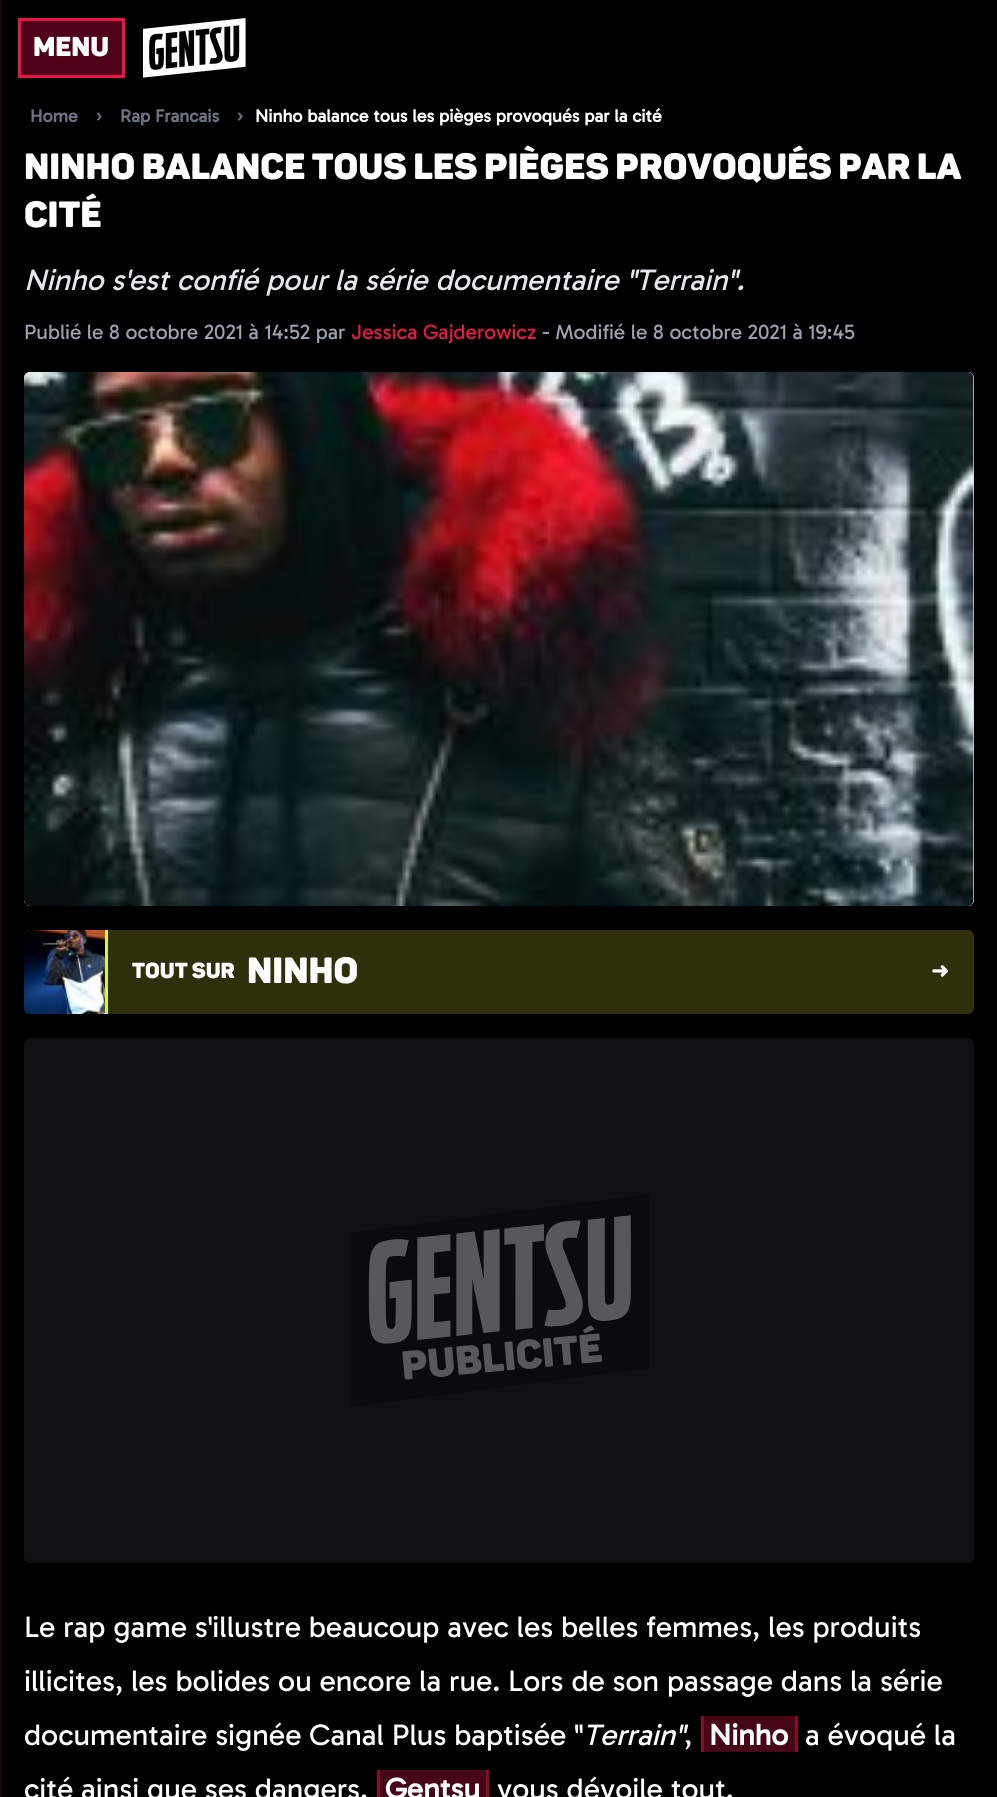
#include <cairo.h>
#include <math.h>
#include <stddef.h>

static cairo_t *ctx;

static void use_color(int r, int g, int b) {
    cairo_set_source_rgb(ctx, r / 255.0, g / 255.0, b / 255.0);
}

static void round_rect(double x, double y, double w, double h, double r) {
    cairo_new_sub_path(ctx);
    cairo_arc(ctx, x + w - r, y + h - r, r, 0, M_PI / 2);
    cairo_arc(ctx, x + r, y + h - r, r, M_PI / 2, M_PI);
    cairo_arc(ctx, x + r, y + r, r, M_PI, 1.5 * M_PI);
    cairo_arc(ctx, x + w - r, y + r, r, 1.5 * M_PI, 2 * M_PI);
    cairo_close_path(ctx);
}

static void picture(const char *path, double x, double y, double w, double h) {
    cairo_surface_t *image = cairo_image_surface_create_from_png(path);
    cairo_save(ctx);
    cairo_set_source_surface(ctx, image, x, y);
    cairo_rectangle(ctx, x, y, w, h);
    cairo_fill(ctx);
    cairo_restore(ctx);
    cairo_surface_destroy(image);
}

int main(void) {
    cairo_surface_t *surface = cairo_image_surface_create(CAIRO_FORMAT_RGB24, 997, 1797);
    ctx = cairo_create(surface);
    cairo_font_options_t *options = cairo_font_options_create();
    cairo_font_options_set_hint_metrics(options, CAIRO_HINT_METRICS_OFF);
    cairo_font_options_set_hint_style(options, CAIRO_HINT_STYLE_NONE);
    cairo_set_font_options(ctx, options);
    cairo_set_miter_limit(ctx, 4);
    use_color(0, 0, 0);
    cairo_paint(ctx);
    use_color(47, 4, 15);
    cairo_rectangle(ctx, 0, 0, 1, 1797);
    cairo_fill(ctx);
    use_color(80, 1, 25);
    cairo_rectangle(ctx, 19.5, 19.5, 104, 57);
    cairo_fill_preserve(ctx);
    use_color(236, 21, 74);
    cairo_set_line_width(ctx, 3);
    cairo_stroke(ctx);
    cairo_select_font_face(ctx, "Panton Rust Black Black", CAIRO_FONT_SLANT_NORMAL, CAIRO_FONT_WEIGHT_NORMAL);
    cairo_set_font_size(ctx, 27);
    use_color(255, 255, 255);
    cairo_move_to(ctx, 33, 56);
    cairo_show_text(ctx, "MENU");
    picture("img1.png", 143, 18, 103, 60);
    cairo_select_font_face(ctx, "Gabarito", CAIRO_FONT_SLANT_NORMAL, CAIRO_FONT_WEIGHT_BOLD);
    cairo_set_font_size(ctx, 18);
    use_color(107, 114, 128);
    cairo_move_to(ctx, 30, 122);
    cairo_show_text(ctx, "Home");
    cairo_move_to(ctx, 96, 122);
    cairo_show_text(ctx, "›");
    cairo_move_to(ctx, 120, 122);
    cairo_show_text(ctx, "Rap Francais");
    cairo_move_to(ctx, 237, 122);
    cairo_show_text(ctx, "›");
    use_color(255, 255, 255);
    cairo_move_to(ctx, 255, 122);
    cairo_show_text(ctx, "Ninho balance tous les pièges provoqués par la cité");
    cairo_select_font_face(ctx, "Panton Rust Black Black", CAIRO_FONT_SLANT_NORMAL, CAIRO_FONT_WEIGHT_NORMAL);
    cairo_set_font_size(ctx, 36);
    cairo_move_to(ctx, 24, 179);
    cairo_show_text(ctx, "Ninho balance tous les pièges provoqués par la");
    cairo_move_to(ctx, 24, 227);
    cairo_show_text(ctx, "cité");
    cairo_select_font_face(ctx, "Gabarito", CAIRO_FONT_SLANT_ITALIC, CAIRO_FONT_WEIGHT_NORMAL);
    cairo_set_font_size(ctx, 30);
    use_color(229, 231, 235);
    cairo_move_to(ctx, 24, 290);
    cairo_show_text(ctx, "Ninho s'est confié pour la série documentaire \"Terrain\".");
    cairo_select_font_face(ctx, "Gabarito", CAIRO_FONT_SLANT_NORMAL, CAIRO_FONT_WEIGHT_NORMAL);
    cairo_set_font_size(ctx, 21);
    use_color(156, 163, 175);
    cairo_move_to(ctx, 24, 339);
    cairo_show_text(ctx, "Publié le 8 octobre 2021 à 14:52 par");
    use_color(236, 21, 74);
    cairo_move_to(ctx, 351, 339);
    cairo_show_text(ctx, "Jessica Gajderowicz");
    use_color(156, 163, 175);
    cairo_move_to(ctx, 542, 339);
    cairo_show_text(ctx, "- Modifié le 8 octobre 2021 à 19:45");
    use_color(209, 213, 219);
    round_rect(24, 372, 950, 534, 6);
    cairo_fill(ctx);
    picture("img2.png", 24, 372, 950, 534);
    use_color(45, 48, 10);
    round_rect(24, 930, 950, 84, 6);
    cairo_fill(ctx);
    use_color(223, 242, 52);
    cairo_rectangle(ctx, 105, 930, 3, 84);
    cairo_fill(ctx);
    picture("img3.png", 24, 930, 81, 84);
    cairo_select_font_face(ctx, "Panton Rust Black Black", CAIRO_FONT_SLANT_NORMAL, CAIRO_FONT_WEIGHT_NORMAL);
    cairo_set_font_size(ctx, 21.5);
    use_color(255, 255, 255);
    cairo_move_to(ctx, 132, 978);
    cairo_show_text(ctx, "Tout sur");
    cairo_set_font_size(ctx, 36);
    cairo_move_to(ctx, 247, 983);
    cairo_show_text(ctx, "ninho");
    cairo_select_font_face(ctx, "DejaVu Sans", CAIRO_FONT_SLANT_NORMAL, CAIRO_FONT_WEIGHT_BOLD);
    cairo_set_font_size(ctx, 21.5);
    cairo_move_to(ctx, 931, 978);
    cairo_show_text(ctx, "➜");
    use_color(16, 16, 18);
    round_rect(24, 1038, 950, 525, 6);
    cairo_fill(ctx);
    picture("img4.png", 350, 1194, 299, 213);
    cairo_select_font_face(ctx, "Gabarito", CAIRO_FONT_SLANT_NORMAL, CAIRO_FONT_WEIGHT_NORMAL);
    cairo_set_font_size(ctx, 30);
    use_color(255, 255, 255);
    cairo_move_to(ctx, 24, 1637);
    cairo_show_text(ctx, "Le rap game s'illustre beaucoup avec les belles femmes, les produits");
    cairo_move_to(ctx, 24, 1691);
    cairo_show_text(ctx, "illicites, les bolides ou encore la rue. Lors de son passage dans la série");
    cairo_move_to(ctx, 24, 1745);
    cairo_show_text(ctx, "documentaire signée Canal Plus baptisée \"");
    cairo_select_font_face(ctx, "Gabarito", CAIRO_FONT_SLANT_ITALIC, CAIRO_FONT_WEIGHT_NORMAL);
    cairo_move_to(ctx, 583, 1745);
    cairo_show_text(ctx, "Terrain\"");
    use_color(71, 6, 22);
    cairo_rectangle(ctx, 704, 1716, 91, 36);
    cairo_fill(ctx);
    cairo_select_font_face(ctx, "Gabarito", CAIRO_FONT_SLANT_NORMAL, CAIRO_FONT_WEIGHT_BOLD);
    use_color(255, 255, 255);
    cairo_move_to(ctx, 709, 1745);
    cairo_show_text(ctx, "Ninho");
    use_color(137, 12, 43);
    cairo_rectangle(ctx, 795, 1716, 3, 36);
    cairo_fill(ctx);
    cairo_rectangle(ctx, 701, 1716, 3, 36);
    cairo_fill(ctx);
    cairo_select_font_face(ctx, "Gabarito", CAIRO_FONT_SLANT_NORMAL, CAIRO_FONT_WEIGHT_NORMAL);
    use_color(255, 255, 255);
    cairo_move_to(ctx, 805, 1745);
    cairo_show_text(ctx, "a évoqué la");
    cairo_move_to(ctx, 684, 1745);
    cairo_show_text(ctx, ",");
    cairo_move_to(ctx, 24, 1799);
    cairo_show_text(ctx, "cité ainsi que ses dangers.");
    use_color(71, 6, 22);
    cairo_rectangle(ctx, 380, 1770, 106, 27);
    cairo_fill(ctx);
    cairo_select_font_face(ctx, "Gabarito", CAIRO_FONT_SLANT_NORMAL, CAIRO_FONT_WEIGHT_BOLD);
    use_color(255, 255, 255);
    cairo_move_to(ctx, 385, 1799);
    cairo_show_text(ctx, "Gentsu");
    use_color(137, 12, 43);
    cairo_rectangle(ctx, 486, 1770, 3, 27);
    cairo_fill(ctx);
    cairo_rectangle(ctx, 377, 1770, 3, 27);
    cairo_fill(ctx);
    cairo_select_font_face(ctx, "Gabarito", CAIRO_FONT_SLANT_NORMAL, CAIRO_FONT_WEIGHT_NORMAL);
    use_color(255, 255, 255);
    cairo_move_to(ctx, 497, 1799);
    cairo_show_text(ctx, "vous dévoile tout.");
    cairo_surface_write_to_png(surface, "result.png");
    cairo_font_options_destroy(options);
    cairo_destroy(ctx);
    cairo_surface_destroy(surface);
    return 0;
}
